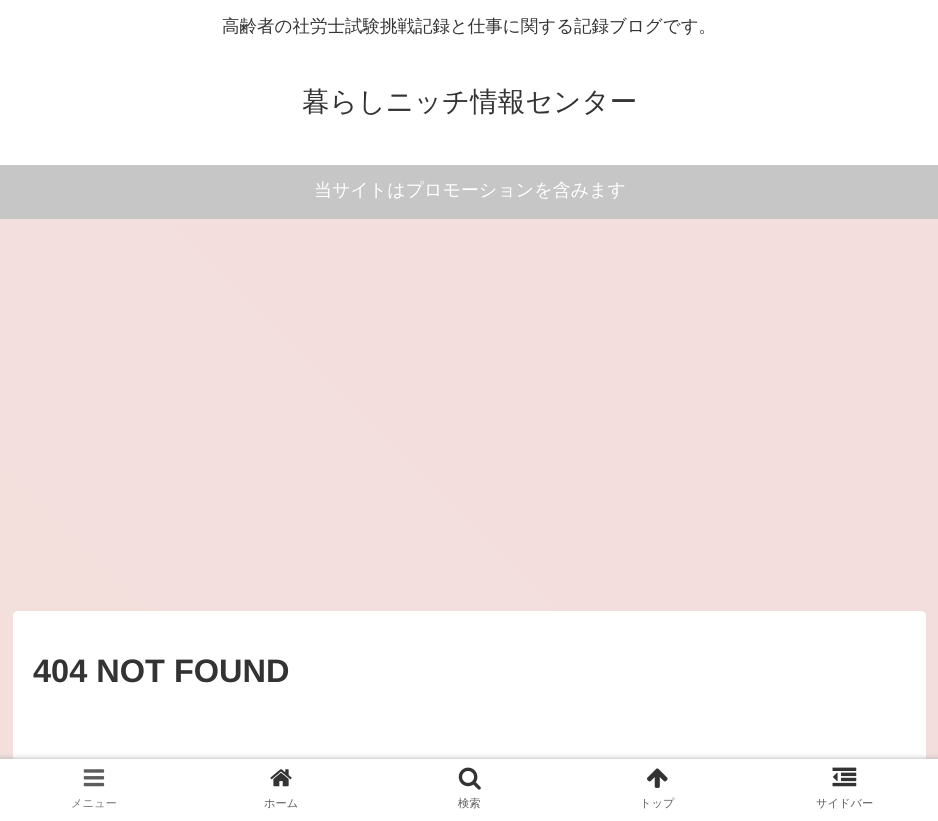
#include <cairo.h>
#include <math.h>
#include <stddef.h>

static cairo_t *ctx;

static void use_color(int r, int g, int b) {
    cairo_set_source_rgb(ctx, r / 255.0, g / 255.0, b / 255.0);
}

static void round_rect(double x, double y, double w, double h, double r) {
    cairo_new_sub_path(ctx);
    cairo_arc(ctx, x + w - r, y + h - r, r, 0, M_PI / 2);
    cairo_arc(ctx, x + r, y + h - r, r, M_PI / 2, M_PI);
    cairo_arc(ctx, x + r, y + r, r, M_PI, 1.5 * M_PI);
    cairo_arc(ctx, x + w - r, y + r, r, 1.5 * M_PI, 2 * M_PI);
    cairo_close_path(ctx);
}

static void shadow(double x, double y, double w, double h, double r, double blur, double alpha) {
    cairo_push_group_with_content(ctx, CAIRO_CONTENT_ALPHA);
    cairo_set_operator(ctx, CAIRO_OPERATOR_SOURCE);
    for (int i = 15; i >= -15 && fmin(w, h) + blur * i / 3 > 0; i -= 2) {
        double e = blur * i / 6;
        cairo_set_source_rgba(ctx, 0, 0, 0, alpha * erfc((i - 1) / 8.5) / 2);
        round_rect(x - e, y - e, w + 2 * e, h + 2 * e, fmax(0, fmin(r + e + blur * .6, fmin(w, h) / 2 + e)));
        cairo_fill(ctx);
    }
    cairo_pattern_t *soft = cairo_pop_group(ctx);
    cairo_mask(ctx, soft);
    cairo_pattern_destroy(soft);
}

static void picture(const char *path, double x, double y, double w, double h) {
    cairo_surface_t *image = cairo_image_surface_create_from_png(path);
    cairo_save(ctx);
    cairo_set_source_surface(ctx, image, x, y);
    cairo_rectangle(ctx, x, y, w, h);
    cairo_fill(ctx);
    cairo_restore(ctx);
    cairo_surface_destroy(image);
}

int main(void) {
    cairo_surface_t *surface = cairo_image_surface_create(CAIRO_FORMAT_RGB24, 938, 821);
    ctx = cairo_create(surface);
    cairo_font_options_t *options = cairo_font_options_create();
    cairo_font_options_set_hint_metrics(options, CAIRO_HINT_METRICS_OFF);
    cairo_font_options_set_hint_style(options, CAIRO_HINT_STYLE_NONE);
    cairo_set_font_options(ctx, options);
    cairo_set_miter_limit(ctx, 4);
    cairo_pattern_t *gradient;
    use_color(255, 255, 255);
    cairo_paint(ctx);
    cairo_select_font_face(ctx, "WenQuanYi Zen Hei Medium", CAIRO_FONT_SLANT_NORMAL, CAIRO_FONT_WEIGHT_NORMAL);
    cairo_set_font_size(ctx, 17.5);
    use_color(51, 51, 51);
    cairo_move_to(ctx, 222, 32);
    cairo_show_text(ctx, "高齢者の社労士試験挑戦記録と仕事に関する記録ブログです。");
    cairo_set_font_size(ctx, 27.5);
    cairo_move_to(ctx, 302, 111);
    cairo_show_text(ctx, "暮らしニッチ情報センター");
    use_color(198, 198, 198);
    cairo_rectangle(ctx, 0, 165, 938, 54);
    cairo_fill(ctx);
    cairo_set_font_size(ctx, 18);
    use_color(255, 255, 255);
    cairo_move_to(ctx, 314, 196);
    cairo_show_text(ctx, "当サイトはプロモーションを含みます");
    gradient = cairo_pattern_create_linear(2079, 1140, -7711, 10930);
    cairo_pattern_add_color_stop_rgba(gradient, 0, 0.953, 0.863, 0.867, 1);
    cairo_pattern_add_color_stop_rgba(gradient, 0.33, 0.953, 0.925, 0.867, 1);
    cairo_pattern_add_color_stop_rgba(gradient, 0.67, 0.851, 0.863, 0.965, 1);
    cairo_pattern_add_color_stop_rgba(gradient, 1, 0.953, 0.863, 0.965, 1);
    cairo_set_source(ctx, gradient);
    cairo_pattern_destroy(gradient);
    cairo_rectangle(ctx, 0, 219, 938, 540);
    cairo_fill(ctx);
    use_color(255, 255, 255);
    round_rect(13, 611, 913, 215, 5);
    cairo_fill(ctx);
    cairo_select_font_face(ctx, "Liberation Sans", CAIRO_FONT_SLANT_NORMAL, CAIRO_FONT_WEIGHT_BOLD);
    cairo_set_font_size(ctx, 32.5);
    use_color(51, 51, 51);
    cairo_move_to(ctx, 33, 682);
    cairo_show_text(ctx, "404 NOT FOUND");
    use_color(169, 169, 169);
    shadow(0, 759, 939, 62, 0, 3, 1);
    use_color(255, 255, 255);
    cairo_rectangle(ctx, 0, 759, 938, 62);
    cairo_fill(ctx);
    picture("img1.png", 83, 769, 22, 18);
    cairo_select_font_face(ctx, "WenQuanYi Zen Hei Medium", CAIRO_FONT_SLANT_NORMAL, CAIRO_FONT_WEIGHT_NORMAL);
    cairo_set_font_size(ctx, 11.25);
    use_color(124, 124, 124);
    cairo_move_to(ctx, 71, 807);
    cairo_show_text(ctx, "メニュー");
    picture("img2.png", 270, 769, 22, 18);
    use_color(92, 92, 92);
    cairo_move_to(ctx, 264, 807);
    cairo_show_text(ctx, "ホーム");
    picture("img3.png", 458, 767, 23, 23);
    cairo_move_to(ctx, 458, 807);
    cairo_show_text(ctx, "検索");
    picture("img4.png", 647, 768, 21, 20);
    cairo_move_to(ctx, 640, 807);
    cairo_show_text(ctx, "トップ");
    picture("img5.png", 832, 767, 25, 20);
    cairo_move_to(ctx, 816, 807);
    cairo_show_text(ctx, "サイドバー");
    cairo_surface_write_to_png(surface, "result.png");
    cairo_font_options_destroy(options);
    cairo_destroy(ctx);
    cairo_surface_destroy(surface);
    return 0;
}
